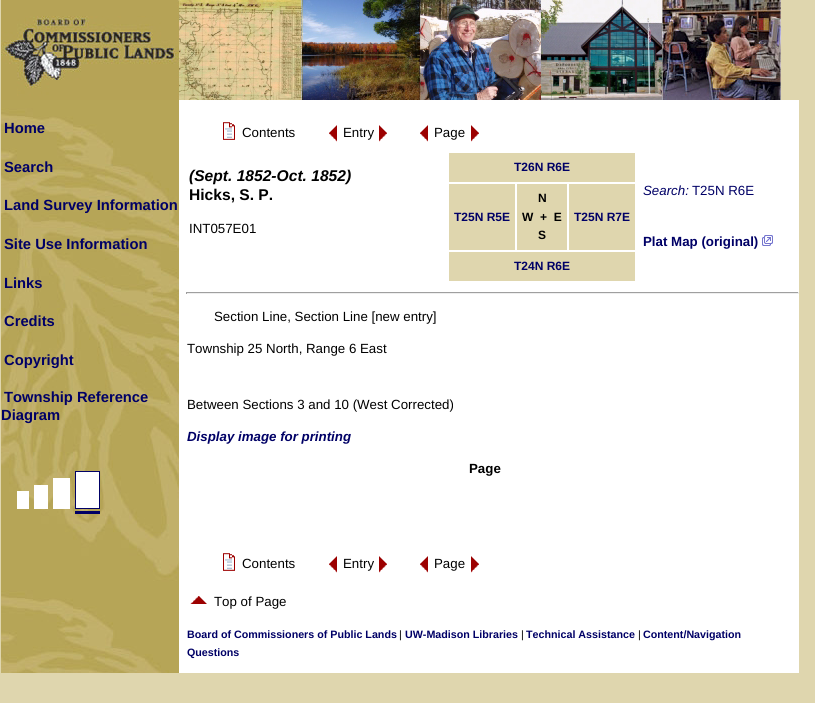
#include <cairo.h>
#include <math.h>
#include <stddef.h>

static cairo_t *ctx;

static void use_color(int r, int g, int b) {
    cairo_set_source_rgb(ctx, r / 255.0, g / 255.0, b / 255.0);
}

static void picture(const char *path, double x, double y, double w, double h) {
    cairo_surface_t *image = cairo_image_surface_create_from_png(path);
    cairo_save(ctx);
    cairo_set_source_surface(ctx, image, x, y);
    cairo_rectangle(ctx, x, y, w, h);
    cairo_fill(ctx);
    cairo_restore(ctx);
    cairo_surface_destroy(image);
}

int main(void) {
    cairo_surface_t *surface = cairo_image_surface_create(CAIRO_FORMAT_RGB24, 815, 703);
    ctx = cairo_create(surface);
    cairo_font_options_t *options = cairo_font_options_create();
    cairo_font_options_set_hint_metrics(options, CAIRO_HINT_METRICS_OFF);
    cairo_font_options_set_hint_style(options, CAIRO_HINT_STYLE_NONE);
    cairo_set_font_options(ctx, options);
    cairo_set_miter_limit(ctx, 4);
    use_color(223, 214, 174);
    cairo_paint(ctx);
    picture("img1.png", 1, 0, 780, 100);
    use_color(255, 255, 255);
    cairo_rectangle(ctx, 179, 100, 620, 573);
    cairo_fill(ctx);
    picture("img2.png", 1, 100, 178, 573);
    cairo_select_font_face(ctx, "Liberation Sans", CAIRO_FONT_SLANT_NORMAL, CAIRO_FONT_WEIGHT_BOLD);
    cairo_set_font_size(ctx, 14.75);
    use_color(0, 0, 102);
    cairo_move_to(ctx, 4, 133);
    cairo_show_text(ctx, "Home");
    cairo_move_to(ctx, 4, 172);
    cairo_show_text(ctx, "Search");
    cairo_move_to(ctx, 4, 210);
    cairo_show_text(ctx, "Land Survey Information");
    cairo_move_to(ctx, 4, 249);
    cairo_show_text(ctx, "Site Use Information");
    cairo_move_to(ctx, 4, 288);
    cairo_show_text(ctx, "Links");
    cairo_move_to(ctx, 4, 326);
    cairo_show_text(ctx, "Credits");
    cairo_move_to(ctx, 4, 365);
    cairo_show_text(ctx, "Copyright");
    cairo_move_to(ctx, 4, 402);
    cairo_show_text(ctx, "Township Reference");
    cairo_move_to(ctx, 1, 420);
    cairo_show_text(ctx, "Diagram");
    use_color(255, 255, 255);
    cairo_rectangle(ctx, 17, 491, 12, 18);
    cairo_fill(ctx);
    cairo_rectangle(ctx, 34, 485, 14, 24);
    cairo_fill(ctx);
    cairo_rectangle(ctx, 53, 478, 17, 31);
    cairo_fill(ctx);
    picture("img3.png", 75, 471, 25, 43);
    picture("img4.png", 223, 122, 12, 18);
    cairo_select_font_face(ctx, "Liberation Sans", CAIRO_FONT_SLANT_NORMAL, CAIRO_FONT_WEIGHT_NORMAL);
    cairo_set_font_size(ctx, 13.3);
    use_color(0, 0, 0);
    cairo_move_to(ctx, 242, 137);
    cairo_show_text(ctx, "Contents");
    picture("img5.png", 329, 125, 8, 17);
    cairo_move_to(ctx, 343, 137);
    cairo_show_text(ctx, "Entry");
    picture("img6.png", 379, 125, 8, 17);
    picture("img5.png", 420, 125, 8, 17);
    cairo_move_to(ctx, 434, 137);
    cairo_show_text(ctx, "Page");
    picture("img6.png", 471, 125, 8, 17);
    cairo_select_font_face(ctx, "Liberation Sans", CAIRO_FONT_SLANT_ITALIC, CAIRO_FONT_WEIGHT_BOLD);
    cairo_set_font_size(ctx, 15.6);
    cairo_move_to(ctx, 189, 181);
    cairo_show_text(ctx, "(Sept. 1852-Oct. 1852)");
    cairo_select_font_face(ctx, "Liberation Sans", CAIRO_FONT_SLANT_NORMAL, CAIRO_FONT_WEIGHT_BOLD);
    cairo_move_to(ctx, 189, 200);
    cairo_show_text(ctx, "Hicks, S. P.");
    cairo_select_font_face(ctx, "Liberation Sans", CAIRO_FONT_SLANT_NORMAL, CAIRO_FONT_WEIGHT_NORMAL);
    cairo_set_font_size(ctx, 13.3);
    cairo_move_to(ctx, 189, 233);
    cairo_show_text(ctx, "INT057E01");
    use_color(223, 214, 174);
    cairo_rectangle(ctx, 449, 153, 186, 29);
    cairo_fill(ctx);
    cairo_select_font_face(ctx, "Liberation Sans", CAIRO_FONT_SLANT_NORMAL, CAIRO_FONT_WEIGHT_BOLD);
    cairo_set_font_size(ctx, 12);
    use_color(0, 0, 102);
    cairo_move_to(ctx, 514, 171);
    cairo_show_text(ctx, "T26N R6E");
    cairo_select_font_face(ctx, "Liberation Sans", CAIRO_FONT_SLANT_ITALIC, CAIRO_FONT_WEIGHT_NORMAL);
    cairo_set_font_size(ctx, 13.3);
    cairo_move_to(ctx, 643, 195);
    cairo_show_text(ctx, "Search:");
    cairo_select_font_face(ctx, "Liberation Sans", CAIRO_FONT_SLANT_NORMAL, CAIRO_FONT_WEIGHT_NORMAL);
    cairo_move_to(ctx, 692, 195);
    cairo_show_text(ctx, "T25N R6E");
    cairo_select_font_face(ctx, "Liberation Sans", CAIRO_FONT_SLANT_NORMAL, CAIRO_FONT_WEIGHT_BOLD);
    cairo_move_to(ctx, 643, 246);
    cairo_show_text(ctx, "Plat Map (original)");
    picture("img7.png", 762, 235, 11, 11);
    use_color(223, 214, 174);
    cairo_rectangle(ctx, 449, 184, 66, 66);
    cairo_fill(ctx);
    cairo_set_font_size(ctx, 12);
    use_color(0, 0, 102);
    cairo_move_to(ctx, 454, 221);
    cairo_show_text(ctx, "T25N R5E");
    use_color(223, 214, 174);
    cairo_rectangle(ctx, 517, 184, 50, 66);
    cairo_fill(ctx);
    use_color(0, 0, 0);
    cairo_move_to(ctx, 538, 202);
    cairo_show_text(ctx, "N");
    cairo_move_to(ctx, 522, 221);
    cairo_show_text(ctx, "W  +  E");
    cairo_move_to(ctx, 538, 239);
    cairo_show_text(ctx, "S");
    use_color(223, 214, 174);
    cairo_rectangle(ctx, 569, 184, 66, 66);
    cairo_fill(ctx);
    use_color(0, 0, 102);
    cairo_move_to(ctx, 574, 221);
    cairo_show_text(ctx, "T25N R7E");
    use_color(223, 214, 174);
    cairo_rectangle(ctx, 449, 252, 186, 29);
    cairo_fill(ctx);
    use_color(0, 0, 102);
    cairo_move_to(ctx, 514, 270);
    cairo_show_text(ctx, "T24N R6E");
    use_color(159, 159, 159);
    cairo_rectangle(ctx, 186, 292, 613, 1);
    cairo_fill(ctx);
    use_color(238, 238, 238);
    cairo_rectangle(ctx, 798, 292, 1, 2);
    cairo_fill(ctx);
    cairo_rectangle(ctx, 186, 293, 613, 1);
    cairo_fill(ctx);
    use_color(159, 159, 159);
    cairo_rectangle(ctx, 186, 292, 1, 2);
    cairo_fill(ctx);
    cairo_select_font_face(ctx, "Liberation Sans", CAIRO_FONT_SLANT_NORMAL, CAIRO_FONT_WEIGHT_NORMAL);
    cairo_set_font_size(ctx, 13.3);
    use_color(0, 0, 0);
    cairo_move_to(ctx, 214, 321);
    cairo_show_text(ctx, "Section Line, Section Line [new entry]");
    cairo_move_to(ctx, 187, 353);
    cairo_show_text(ctx, "Township 25 North, Range 6 East");
    cairo_move_to(ctx, 187, 409);
    cairo_show_text(ctx, "Between Sections 3 and 10 (West Corrected)");
    cairo_select_font_face(ctx, "Liberation Sans", CAIRO_FONT_SLANT_ITALIC, CAIRO_FONT_WEIGHT_BOLD);
    use_color(0, 0, 102);
    cairo_move_to(ctx, 187, 441);
    cairo_show_text(ctx, "Display image for printing");
    cairo_select_font_face(ctx, "Liberation Sans", CAIRO_FONT_SLANT_NORMAL, CAIRO_FONT_WEIGHT_BOLD);
    use_color(0, 0, 0);
    cairo_move_to(ctx, 469, 473);
    cairo_show_text(ctx, "Page");
    picture("img8.png", 223, 553, 12, 18);
    cairo_select_font_face(ctx, "Liberation Sans", CAIRO_FONT_SLANT_NORMAL, CAIRO_FONT_WEIGHT_NORMAL);
    cairo_move_to(ctx, 242, 568);
    cairo_show_text(ctx, "Contents");
    picture("img5.png", 329, 556, 8, 17);
    cairo_move_to(ctx, 343, 568);
    cairo_show_text(ctx, "Entry");
    picture("img6.png", 379, 556, 8, 17);
    picture("img5.png", 420, 556, 8, 17);
    cairo_move_to(ctx, 434, 568);
    cairo_show_text(ctx, "Page");
    picture("img6.png", 471, 556, 8, 17);
    picture("img9.png", 190, 596, 17, 8);
    cairo_move_to(ctx, 214, 606);
    cairo_show_text(ctx, "Top of Page");
    cairo_select_font_face(ctx, "Liberation Sans", CAIRO_FONT_SLANT_NORMAL, CAIRO_FONT_WEIGHT_BOLD);
    cairo_set_font_size(ctx, 10.7);
    use_color(0, 0, 102);
    cairo_move_to(ctx, 187, 638);
    cairo_show_text(ctx, "Board of Commissioners of Public Lands");
    cairo_select_font_face(ctx, "Liberation Sans", CAIRO_FONT_SLANT_NORMAL, CAIRO_FONT_WEIGHT_NORMAL);
    use_color(0, 0, 0);
    cairo_move_to(ctx, 399, 638);
    cairo_show_text(ctx, "|");
    cairo_select_font_face(ctx, "Liberation Sans", CAIRO_FONT_SLANT_NORMAL, CAIRO_FONT_WEIGHT_BOLD);
    use_color(0, 0, 102);
    cairo_move_to(ctx, 405, 638);
    cairo_show_text(ctx, "UW-Madison Libraries");
    cairo_select_font_face(ctx, "Liberation Sans", CAIRO_FONT_SLANT_NORMAL, CAIRO_FONT_WEIGHT_NORMAL);
    use_color(0, 0, 0);
    cairo_move_to(ctx, 521, 638);
    cairo_show_text(ctx, "|");
    cairo_select_font_face(ctx, "Liberation Sans", CAIRO_FONT_SLANT_NORMAL, CAIRO_FONT_WEIGHT_BOLD);
    use_color(0, 0, 102);
    cairo_move_to(ctx, 526, 638);
    cairo_show_text(ctx, "Technical Assistance");
    cairo_select_font_face(ctx, "Liberation Sans", CAIRO_FONT_SLANT_NORMAL, CAIRO_FONT_WEIGHT_NORMAL);
    use_color(0, 0, 0);
    cairo_move_to(ctx, 638, 638);
    cairo_show_text(ctx, "|");
    cairo_select_font_face(ctx, "Liberation Sans", CAIRO_FONT_SLANT_NORMAL, CAIRO_FONT_WEIGHT_BOLD);
    use_color(0, 0, 102);
    cairo_move_to(ctx, 643, 638);
    cairo_show_text(ctx, "Content/Navigation");
    cairo_move_to(ctx, 187, 656);
    cairo_show_text(ctx, "Questions");
    cairo_surface_write_to_png(surface, "result.png");
    cairo_font_options_destroy(options);
    cairo_destroy(ctx);
    cairo_surface_destroy(surface);
    return 0;
}
